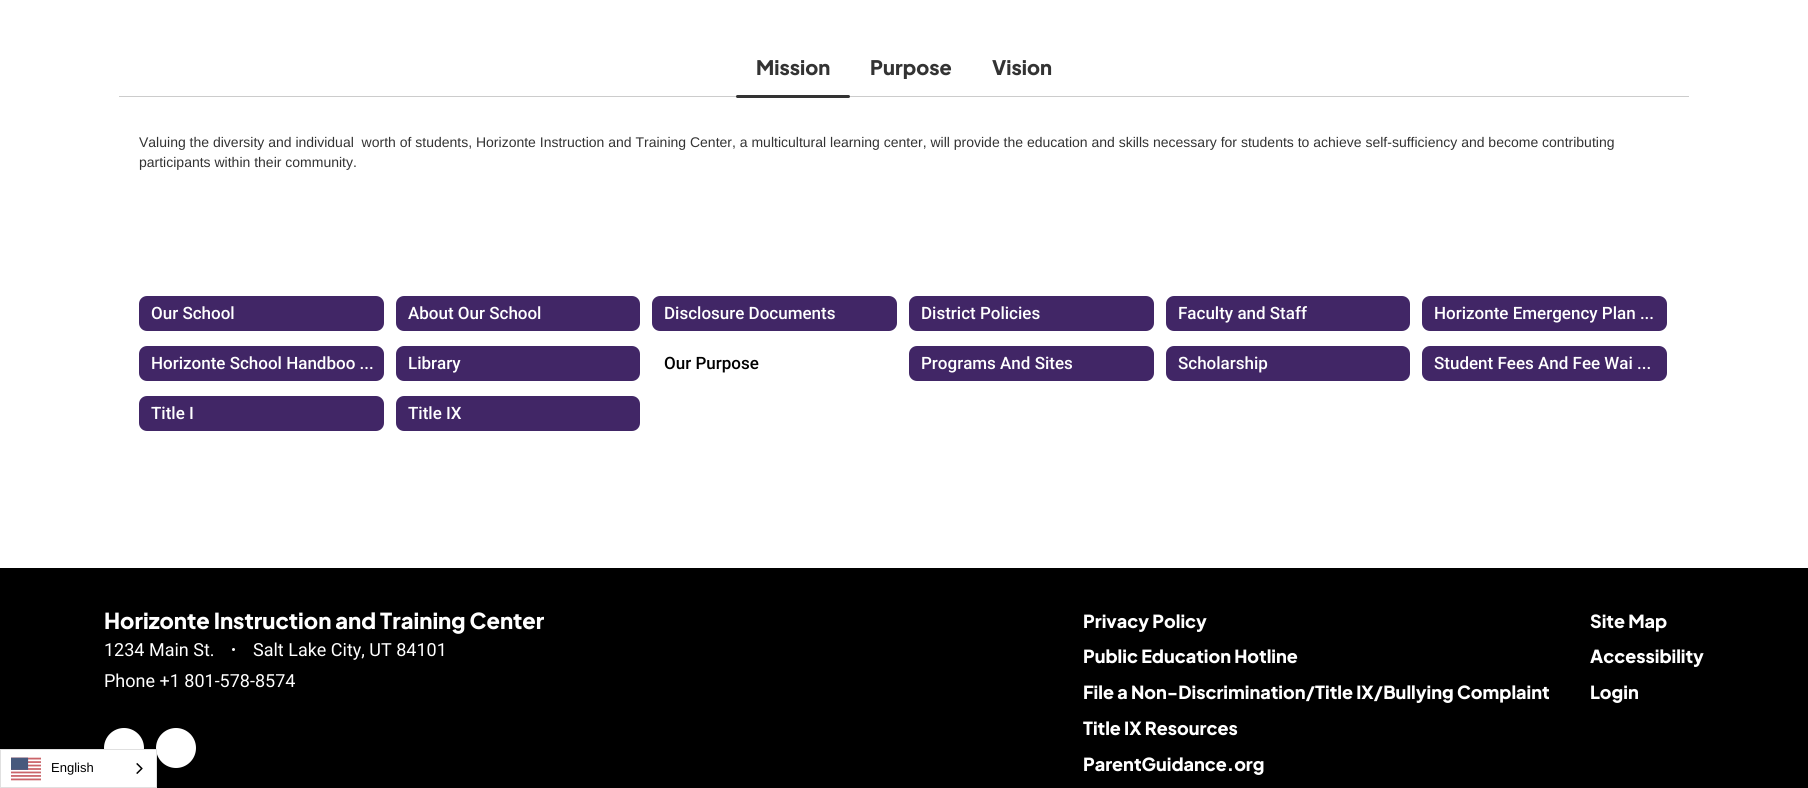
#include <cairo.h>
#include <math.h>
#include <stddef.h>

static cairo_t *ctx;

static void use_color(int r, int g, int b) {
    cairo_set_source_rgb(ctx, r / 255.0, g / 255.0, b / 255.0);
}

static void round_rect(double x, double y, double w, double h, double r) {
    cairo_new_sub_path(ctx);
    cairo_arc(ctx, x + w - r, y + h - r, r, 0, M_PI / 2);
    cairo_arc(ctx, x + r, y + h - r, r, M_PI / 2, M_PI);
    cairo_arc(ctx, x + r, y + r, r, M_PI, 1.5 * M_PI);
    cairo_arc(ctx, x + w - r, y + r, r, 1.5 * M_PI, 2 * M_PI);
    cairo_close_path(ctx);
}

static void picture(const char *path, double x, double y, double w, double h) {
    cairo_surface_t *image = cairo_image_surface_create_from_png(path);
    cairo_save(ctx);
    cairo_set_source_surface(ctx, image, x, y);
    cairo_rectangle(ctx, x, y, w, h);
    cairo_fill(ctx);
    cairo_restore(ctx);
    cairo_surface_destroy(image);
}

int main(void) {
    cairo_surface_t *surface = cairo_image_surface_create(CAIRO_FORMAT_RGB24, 1808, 788);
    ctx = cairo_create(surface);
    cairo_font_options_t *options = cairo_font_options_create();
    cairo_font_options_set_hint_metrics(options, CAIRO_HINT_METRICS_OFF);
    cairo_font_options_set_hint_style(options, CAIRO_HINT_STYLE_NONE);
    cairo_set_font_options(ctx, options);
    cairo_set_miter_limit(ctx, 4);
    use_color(255, 255, 255);
    cairo_paint(ctx);
    cairo_select_font_face(ctx, "Plus Jakarta Sans ExtraBold", CAIRO_FONT_SLANT_NORMAL, CAIRO_FONT_WEIGHT_NORMAL);
    cairo_set_font_size(ctx, 20);
    use_color(51, 51, 51);
    cairo_move_to(ctx, 756, 75);
    cairo_show_text(ctx, "Mission");
    use_color(204, 204, 204);
    cairo_rectangle(ctx, 119, 96, 1570, 1);
    cairo_fill(ctx);
    use_color(51, 51, 51);
    round_rect(736, 95, 114, 3, 1.5);
    cairo_fill(ctx);
    cairo_move_to(ctx, 870, 75);
    cairo_show_text(ctx, "Purpose");
    cairo_move_to(ctx, 992, 75);
    cairo_show_text(ctx, "Vision");
    cairo_select_font_face(ctx, "Liberation Sans", CAIRO_FONT_SLANT_NORMAL, CAIRO_FONT_WEIGHT_NORMAL);
    cairo_set_font_size(ctx, 14);
    cairo_move_to(ctx, 139, 147);
    cairo_show_text(ctx, "Valuing the diversity and individual  worth of students, Horizonte Instruction and Training Center, a multicultural learning center, will provide the education and skills necessary for students to achieve self-sufficiency and become contributing");
    cairo_move_to(ctx, 139, 167);
    cairo_show_text(ctx, "participants within their community.");
    use_color(65, 38, 102);
    round_rect(139, 296, 245, 35, 8);
    cairo_fill(ctx);
    cairo_select_font_face(ctx, "Roboto Medium", CAIRO_FONT_SLANT_NORMAL, CAIRO_FONT_WEIGHT_NORMAL);
    cairo_set_font_size(ctx, 17);
    use_color(255, 255, 255);
    cairo_move_to(ctx, 151, 319);
    cairo_show_text(ctx, "Our School");
    use_color(65, 38, 102);
    round_rect(396, 296, 244, 35, 8);
    cairo_fill(ctx);
    use_color(255, 255, 255);
    cairo_move_to(ctx, 408, 319);
    cairo_show_text(ctx, "About Our School");
    use_color(65, 38, 102);
    round_rect(652, 296, 245, 35, 8);
    cairo_fill(ctx);
    use_color(255, 255, 255);
    cairo_move_to(ctx, 664, 319);
    cairo_show_text(ctx, "Disclosure Documents");
    use_color(65, 38, 102);
    round_rect(909, 296, 245, 35, 8);
    cairo_fill(ctx);
    use_color(255, 255, 255);
    cairo_move_to(ctx, 921, 319);
    cairo_show_text(ctx, "District Policies");
    use_color(65, 38, 102);
    round_rect(1166, 296, 244, 35, 8);
    cairo_fill(ctx);
    use_color(255, 255, 255);
    cairo_move_to(ctx, 1178, 319);
    cairo_show_text(ctx, "Faculty and Staff");
    use_color(65, 38, 102);
    round_rect(1422, 296, 245, 35, 8);
    cairo_fill(ctx);
    use_color(255, 255, 255);
    cairo_move_to(ctx, 1434, 319);
    cairo_show_text(ctx, "Horizonte Emergency Plan ...");
    use_color(65, 38, 102);
    round_rect(139, 346, 245, 35, 8);
    cairo_fill(ctx);
    use_color(255, 255, 255);
    cairo_move_to(ctx, 151, 369);
    cairo_show_text(ctx, "Horizonte School Handboo ...");
    use_color(65, 38, 102);
    round_rect(396, 346, 244, 35, 8);
    cairo_fill(ctx);
    use_color(255, 255, 255);
    cairo_move_to(ctx, 408, 369);
    cairo_show_text(ctx, "Library");
    use_color(0, 0, 0);
    cairo_move_to(ctx, 664, 369);
    cairo_show_text(ctx, "Our Purpose");
    use_color(65, 38, 102);
    round_rect(909, 346, 245, 35, 8);
    cairo_fill(ctx);
    use_color(255, 255, 255);
    cairo_move_to(ctx, 921, 369);
    cairo_show_text(ctx, "Programs And Sites");
    use_color(65, 38, 102);
    round_rect(1166, 346, 244, 35, 8);
    cairo_fill(ctx);
    use_color(255, 255, 255);
    cairo_move_to(ctx, 1178, 369);
    cairo_show_text(ctx, "Scholarship");
    use_color(65, 38, 102);
    round_rect(1422, 346, 245, 35, 8);
    cairo_fill(ctx);
    use_color(255, 255, 255);
    cairo_move_to(ctx, 1434, 369);
    cairo_show_text(ctx, "Student Fees And Fee Wai ...");
    use_color(65, 38, 102);
    round_rect(139, 396, 245, 35, 8);
    cairo_fill(ctx);
    use_color(255, 255, 255);
    cairo_move_to(ctx, 151, 419);
    cairo_show_text(ctx, "Title I");
    use_color(65, 38, 102);
    round_rect(396, 396, 244, 35, 8);
    cairo_fill(ctx);
    use_color(255, 255, 255);
    cairo_move_to(ctx, 408, 419);
    cairo_show_text(ctx, "Title IX");
    use_color(0, 0, 0);
    cairo_rectangle(ctx, 0, 568, 1808, 220);
    cairo_fill(ctx);
    use_color(255, 255, 255);
    cairo_arc(ctx, 124, 748, 20, 0, 2 * M_PI);
    cairo_fill(ctx);
    cairo_arc(ctx, 176, 748, 20, 0, 2 * M_PI);
    cairo_fill(ctx);
    cairo_rectangle(ctx, 0.5, 749.5, 156, 38);
    cairo_fill_preserve(ctx);
    use_color(224, 224, 224);
    cairo_set_line_width(ctx, 1);
    cairo_stroke(ctx);
    picture("img1.png", 11, 757, 30, 24);
    cairo_select_font_face(ctx, "Liberation Sans", CAIRO_FONT_SLANT_NORMAL, CAIRO_FONT_WEIGHT_NORMAL);
    cairo_set_font_size(ctx, 13);
    use_color(0, 0, 0);
    cairo_move_to(ctx, 51, 772);
    cairo_show_text(ctx, "English");
    picture("img2.png", 136, 763, 7, 11);
    cairo_select_font_face(ctx, "Plus Jakarta Sans ExtraBold", CAIRO_FONT_SLANT_NORMAL, CAIRO_FONT_WEIGHT_NORMAL);
    cairo_set_font_size(ctx, 22);
    use_color(255, 255, 255);
    cairo_move_to(ctx, 104, 629);
    cairo_show_text(ctx, "Horizonte Instruction and Training Center");
    cairo_select_font_face(ctx, "Roboto", CAIRO_FONT_SLANT_NORMAL, CAIRO_FONT_WEIGHT_NORMAL);
    cairo_set_font_size(ctx, 18);
    cairo_move_to(ctx, 104, 656);
    cairo_show_text(ctx, "1234 Main St.");
    cairo_new_path(ctx);
    cairo_arc(ctx, 233.5, 649.5, 1.5, 0, 2 * M_PI);
    cairo_fill(ctx);
    cairo_move_to(ctx, 253, 656);
    cairo_show_text(ctx, "Salt Lake City, UT 84101");
    cairo_move_to(ctx, 104, 687);
    cairo_show_text(ctx, "Phone +1 801-578-8574");
    cairo_select_font_face(ctx, "Plus Jakarta Sans ExtraBold", CAIRO_FONT_SLANT_NORMAL, CAIRO_FONT_WEIGHT_NORMAL);
    cairo_move_to(ctx, 1083, 628);
    cairo_show_text(ctx, "Privacy Policy");
    cairo_move_to(ctx, 1083, 663);
    cairo_show_text(ctx, "Public Education Hotline");
    cairo_move_to(ctx, 1083, 699);
    cairo_show_text(ctx, "File a Non-Discrimination/Title IX/Bullying Complaint");
    cairo_move_to(ctx, 1083, 735);
    cairo_show_text(ctx, "Title IX Resources");
    cairo_move_to(ctx, 1083, 771);
    cairo_show_text(ctx, "ParentGuidance.org");
    cairo_move_to(ctx, 1590, 628);
    cairo_show_text(ctx, "Site Map");
    cairo_move_to(ctx, 1590, 663);
    cairo_show_text(ctx, "Accessibility");
    cairo_move_to(ctx, 1590, 699);
    cairo_show_text(ctx, "Login");
    cairo_surface_write_to_png(surface, "result.png");
    cairo_font_options_destroy(options);
    cairo_destroy(ctx);
    cairo_surface_destroy(surface);
    return 0;
}
